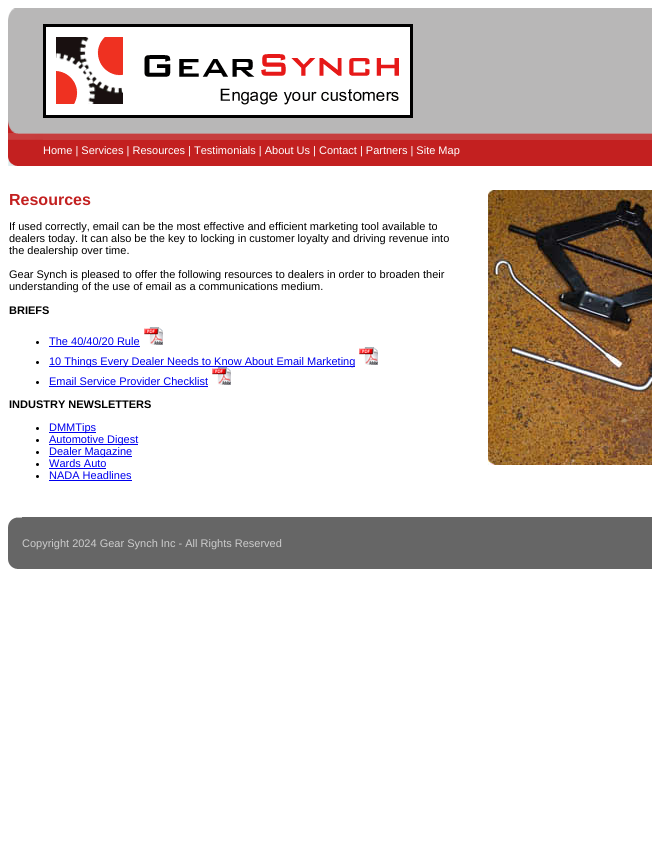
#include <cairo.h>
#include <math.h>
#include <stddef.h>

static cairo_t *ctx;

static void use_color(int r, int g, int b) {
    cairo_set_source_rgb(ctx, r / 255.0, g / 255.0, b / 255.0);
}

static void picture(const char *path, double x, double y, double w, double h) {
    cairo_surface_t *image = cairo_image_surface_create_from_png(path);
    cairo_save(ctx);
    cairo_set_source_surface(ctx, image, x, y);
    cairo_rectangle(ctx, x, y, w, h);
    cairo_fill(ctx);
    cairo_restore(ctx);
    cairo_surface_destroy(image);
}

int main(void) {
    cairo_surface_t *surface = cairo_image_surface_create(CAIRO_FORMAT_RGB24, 652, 847);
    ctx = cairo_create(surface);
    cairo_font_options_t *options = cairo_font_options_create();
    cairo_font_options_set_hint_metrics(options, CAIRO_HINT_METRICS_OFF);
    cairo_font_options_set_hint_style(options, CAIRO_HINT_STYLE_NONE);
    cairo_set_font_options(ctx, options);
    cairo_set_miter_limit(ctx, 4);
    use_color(255, 255, 255);
    cairo_paint(ctx);
    picture("img1.png", 8, 8, 35, 125);
    use_color(184, 183, 183);
    cairo_rectangle(ctx, 43, 8, 609, 125);
    cairo_fill(ctx);
    use_color(255, 255, 255);
    cairo_rectangle(ctx, 46, 27, 364, 88);
    cairo_fill(ctx);
    cairo_rectangle(ctx, 44, 25, 368, 92);
    use_color(0, 0, 0);
    cairo_stroke(ctx);
    cairo_rectangle(ctx, 45.5, 26.5, 365, 89);
    cairo_set_line_width(ctx, 1);
    cairo_stroke(ctx);
    picture("img2.png", 56, 37, 343, 68);
    picture("img3.png", 8, 133, 35, 33);
    picture("img4.png", 43, 133, 609, 33);
    cairo_select_font_face(ctx, "Liberation Sans", CAIRO_FONT_SLANT_NORMAL, CAIRO_FONT_WEIGHT_NORMAL);
    cairo_set_font_size(ctx, 11);
    use_color(255, 255, 255);
    cairo_move_to(ctx, 43, 154);
    cairo_show_text(ctx, "Home | Services | Resources | Testimonials | About Us | Contact | Partners | Site Map");
    cairo_select_font_face(ctx, "Liberation Sans", CAIRO_FONT_SLANT_NORMAL, CAIRO_FONT_WEIGHT_BOLD);
    cairo_set_font_size(ctx, 16);
    use_color(195, 32, 32);
    cairo_move_to(ctx, 9, 205);
    cairo_show_text(ctx, "Resources");
    cairo_select_font_face(ctx, "Liberation Sans", CAIRO_FONT_SLANT_NORMAL, CAIRO_FONT_WEIGHT_NORMAL);
    cairo_set_font_size(ctx, 11);
    use_color(0, 0, 0);
    cairo_move_to(ctx, 9, 230);
    cairo_show_text(ctx, "If used correctly, email can be the most effective and efficient marketing tool available to");
    cairo_move_to(ctx, 9, 242);
    cairo_show_text(ctx, "dealers today. It can also be the key to locking in customer loyalty and driving revenue into");
    cairo_move_to(ctx, 9, 254);
    cairo_show_text(ctx, "the dealership over time.");
    cairo_move_to(ctx, 9, 278);
    cairo_show_text(ctx, "Gear Synch is pleased to offer the following resources to dealers in order to broaden their");
    cairo_move_to(ctx, 9, 290);
    cairo_show_text(ctx, "understanding of the use of email as a communications medium.");
    cairo_select_font_face(ctx, "Liberation Sans", CAIRO_FONT_SLANT_NORMAL, CAIRO_FONT_WEIGHT_BOLD);
    cairo_move_to(ctx, 9, 314);
    cairo_show_text(ctx, "BRIEFS");
    cairo_new_path(ctx);
    cairo_arc(ctx, 37.5, 342.5, 1.5, 0, 2 * M_PI);
    cairo_fill(ctx);
    cairo_select_font_face(ctx, "Liberation Sans", CAIRO_FONT_SLANT_NORMAL, CAIRO_FONT_WEIGHT_NORMAL);
    use_color(0, 0, 238);
    cairo_move_to(ctx, 49, 345);
    cairo_show_text(ctx, "The 40/40/20 Rule");
    cairo_rectangle(ctx, 49, 346, 91, 1);
    cairo_fill(ctx);
    picture("img5.png", 144, 327, 19, 18);
    use_color(0, 0, 0);
    cairo_arc(ctx, 37.5, 362.5, 1.5, 0, 2 * M_PI);
    cairo_fill(ctx);
    use_color(0, 0, 238);
    cairo_rectangle(ctx, 49, 366, 306, 1);
    cairo_fill(ctx);
    cairo_move_to(ctx, 49, 365);
    cairo_show_text(ctx, "10 Things Every Dealer Needs to Know About Email Marketing");
    picture("img5.png", 359, 347, 19, 18);
    use_color(0, 0, 0);
    cairo_arc(ctx, 37.5, 382.5, 1.5, 0, 2 * M_PI);
    cairo_fill(ctx);
    use_color(0, 0, 238);
    cairo_move_to(ctx, 49, 385);
    cairo_show_text(ctx, "Email Service Provider Checklist");
    cairo_rectangle(ctx, 49, 386, 159, 1);
    cairo_fill(ctx);
    picture("img5.png", 212, 367, 19, 18);
    cairo_select_font_face(ctx, "Liberation Sans", CAIRO_FONT_SLANT_NORMAL, CAIRO_FONT_WEIGHT_BOLD);
    use_color(0, 0, 0);
    cairo_move_to(ctx, 9, 408);
    cairo_show_text(ctx, "INDUSTRY NEWSLETTERS");
    cairo_new_path(ctx);
    cairo_arc(ctx, 37.5, 428.5, 1.5, 0, 2 * M_PI);
    cairo_fill(ctx);
    use_color(0, 0, 238);
    cairo_rectangle(ctx, 49, 432, 47, 1);
    cairo_fill(ctx);
    cairo_select_font_face(ctx, "Liberation Sans", CAIRO_FONT_SLANT_NORMAL, CAIRO_FONT_WEIGHT_NORMAL);
    cairo_move_to(ctx, 49, 431);
    cairo_show_text(ctx, "DMMTips");
    use_color(0, 0, 0);
    cairo_new_path(ctx);
    cairo_arc(ctx, 37.5, 440.5, 1.5, 0, 2 * M_PI);
    cairo_fill(ctx);
    use_color(0, 0, 238);
    cairo_rectangle(ctx, 49, 444, 89, 1);
    cairo_fill(ctx);
    cairo_move_to(ctx, 49, 443);
    cairo_show_text(ctx, "Automotive Digest");
    use_color(0, 0, 0);
    cairo_new_path(ctx);
    cairo_arc(ctx, 37.5, 452.5, 1.5, 0, 2 * M_PI);
    cairo_fill(ctx);
    use_color(0, 0, 238);
    cairo_rectangle(ctx, 49, 456, 83, 1);
    cairo_fill(ctx);
    cairo_move_to(ctx, 49, 455);
    cairo_show_text(ctx, "Dealer Magazine");
    use_color(0, 0, 0);
    cairo_new_path(ctx);
    cairo_arc(ctx, 37.5, 464.5, 1.5, 0, 2 * M_PI);
    cairo_fill(ctx);
    use_color(0, 0, 238);
    cairo_move_to(ctx, 49, 467);
    cairo_show_text(ctx, "Wards Auto");
    cairo_rectangle(ctx, 49, 468, 57, 1);
    cairo_fill(ctx);
    use_color(0, 0, 0);
    cairo_arc(ctx, 37.5, 476.5, 1.5, 0, 2 * M_PI);
    cairo_fill(ctx);
    use_color(0, 0, 238);
    cairo_move_to(ctx, 49, 479);
    cairo_show_text(ctx, "NADA Headlines");
    cairo_rectangle(ctx, 49, 480, 83, 1);
    cairo_fill(ctx);
    picture("img6.png", 488, 190, 164, 275);
    picture("img7.png", 8, 517, 14, 52);
    use_color(102, 102, 102);
    cairo_rectangle(ctx, 22, 517, 630, 52);
    cairo_fill(ctx);
    use_color(204, 204, 204);
    cairo_move_to(ctx, 22, 547);
    cairo_show_text(ctx, "Copyright 2024 Gear Synch Inc - All Rights Reserved");
    cairo_surface_write_to_png(surface, "result.png");
    cairo_font_options_destroy(options);
    cairo_destroy(ctx);
    cairo_surface_destroy(surface);
    return 0;
}
